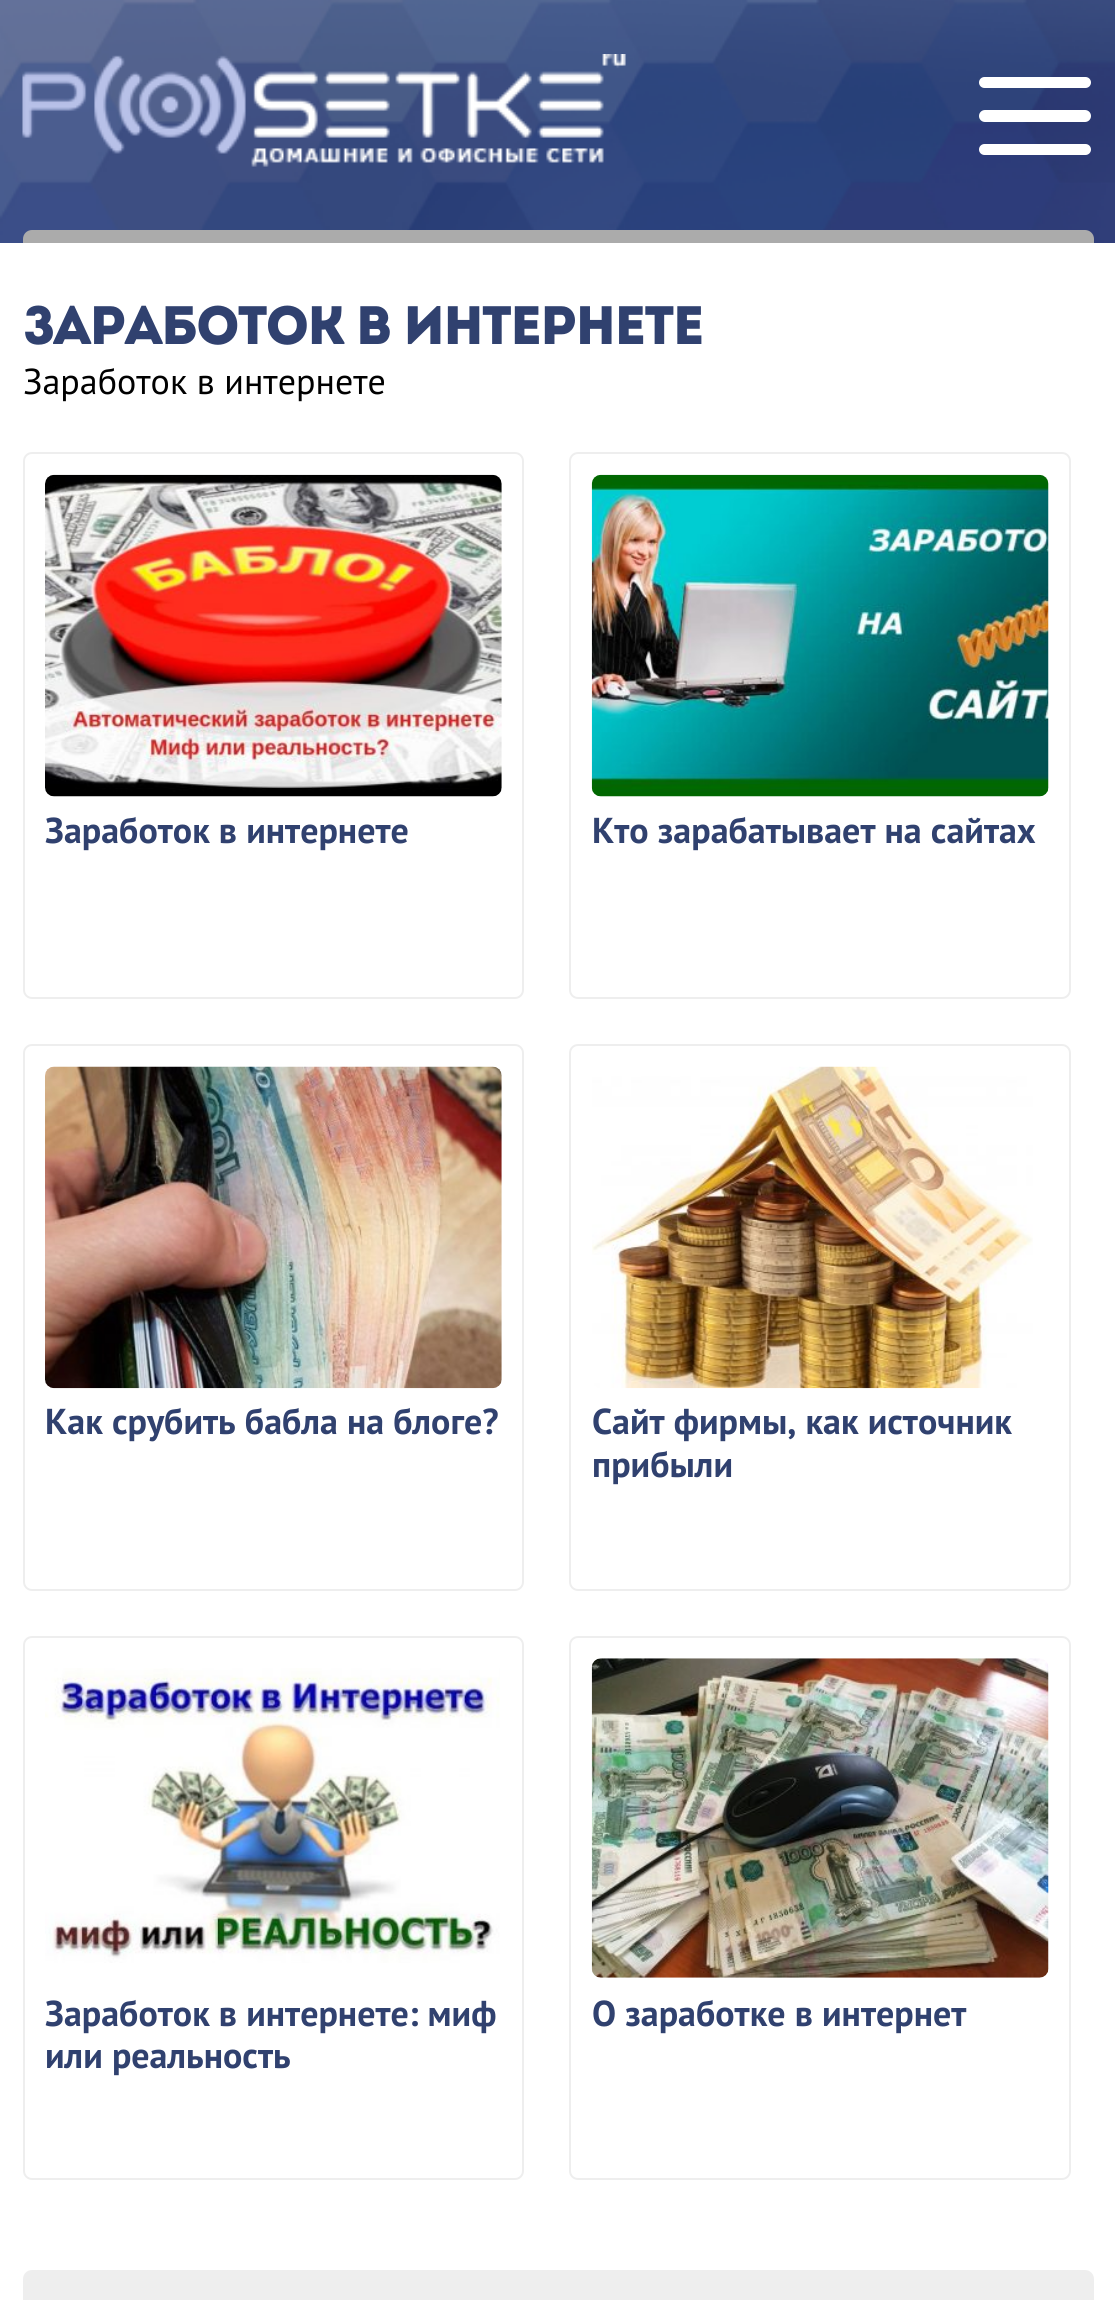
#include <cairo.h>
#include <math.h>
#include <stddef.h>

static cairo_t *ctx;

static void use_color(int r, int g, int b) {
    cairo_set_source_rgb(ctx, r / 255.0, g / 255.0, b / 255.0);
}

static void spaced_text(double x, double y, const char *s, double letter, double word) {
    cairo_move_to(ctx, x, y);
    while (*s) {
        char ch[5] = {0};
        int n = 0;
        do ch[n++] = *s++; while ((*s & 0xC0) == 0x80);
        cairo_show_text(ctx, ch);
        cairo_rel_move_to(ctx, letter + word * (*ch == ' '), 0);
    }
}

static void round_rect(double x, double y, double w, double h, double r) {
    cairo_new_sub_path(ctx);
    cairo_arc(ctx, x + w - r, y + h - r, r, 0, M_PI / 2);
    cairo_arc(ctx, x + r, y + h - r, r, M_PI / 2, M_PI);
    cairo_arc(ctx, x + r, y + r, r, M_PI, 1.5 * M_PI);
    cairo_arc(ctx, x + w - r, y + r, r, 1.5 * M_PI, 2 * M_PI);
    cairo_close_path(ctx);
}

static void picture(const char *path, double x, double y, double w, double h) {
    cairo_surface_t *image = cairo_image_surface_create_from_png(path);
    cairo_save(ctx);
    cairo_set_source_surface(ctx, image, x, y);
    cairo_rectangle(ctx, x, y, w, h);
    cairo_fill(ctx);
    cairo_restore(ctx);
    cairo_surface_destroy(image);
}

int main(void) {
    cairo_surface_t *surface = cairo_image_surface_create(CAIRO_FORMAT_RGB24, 1115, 2300);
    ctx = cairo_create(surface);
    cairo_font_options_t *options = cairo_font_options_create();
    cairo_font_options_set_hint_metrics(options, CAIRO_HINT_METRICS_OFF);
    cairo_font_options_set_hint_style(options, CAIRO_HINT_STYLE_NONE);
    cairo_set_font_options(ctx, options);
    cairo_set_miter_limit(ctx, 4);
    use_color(255, 255, 255);
    cairo_paint(ctx);
    picture("img1.png", 0, 0, 1115, 243);
    picture("img2.png", 22, 54, 604, 113);
    use_color(255, 255, 255);
    round_rect(979, 110, 112, 12, 6);
    cairo_fill(ctx);
    round_rect(979, 77, 112, 11, 5.5);
    cairo_fill(ctx);
    round_rect(979, 144, 112, 11, 5.5);
    cairo_fill(ctx);
    use_color(171, 171, 171);
    cairo_new_path(ctx);
    cairo_move_to(ctx, 32, 230);
    cairo_line_to(ctx, 1085, 230);
    cairo_curve_to(ctx, 1090, 230, 1094, 234, 1094, 239);
    cairo_line_to(ctx, 1094, 243);
    cairo_line_to(ctx, 23, 243);
    cairo_line_to(ctx, 23, 239);
    cairo_curve_to(ctx, 23, 234, 27, 230, 32, 230);
    cairo_close_path(ctx);
    cairo_fill(ctx);
    cairo_select_font_face(ctx, "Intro", CAIRO_FONT_SLANT_NORMAL, CAIRO_FONT_WEIGHT_NORMAL);
    cairo_set_font_size(ctx, 54);
    use_color(48, 65, 111);
    spaced_text(23, 344, "ЗАРАБОТОК В ИНТЕРНЕТЕ", -2.25, 0);
    cairo_select_font_face(ctx, "PT Sans", CAIRO_FONT_SLANT_NORMAL, CAIRO_FONT_WEIGHT_NORMAL);
    cairo_set_font_size(ctx, 36);
    use_color(0, 0, 0);
    cairo_move_to(ctx, 23, 394);
    cairo_show_text(ctx, "Заработок в интернете");
    round_rect(24, 453, 499, 545, 8);
    use_color(238, 238, 238);
    cairo_stroke(ctx);
    picture("img3.png", 45, 474, 457, 323);
    cairo_select_font_face(ctx, "PT Sans", CAIRO_FONT_SLANT_NORMAL, CAIRO_FONT_WEIGHT_BOLD);
    use_color(48, 65, 111);
    cairo_move_to(ctx, 45, 843);
    cairo_show_text(ctx, "Заработок в интернете");
    round_rect(570, 453, 500, 545, 8);
    use_color(238, 238, 238);
    cairo_stroke(ctx);
    picture("img4.png", 591, 474, 458, 323);
    use_color(48, 65, 111);
    cairo_move_to(ctx, 592, 843);
    cairo_show_text(ctx, "Кто зарабатывает на сайтах");
    round_rect(24, 1045, 499, 545, 8);
    use_color(238, 238, 238);
    cairo_stroke(ctx);
    picture("img5.png", 45, 1066, 457, 323);
    use_color(48, 65, 111);
    cairo_move_to(ctx, 45, 1434);
    cairo_show_text(ctx, "Как срубить бабла на блоге?");
    round_rect(570, 1045, 500, 545, 8);
    use_color(238, 238, 238);
    cairo_stroke(ctx);
    picture("img6.png", 592, 1066, 441, 323);
    use_color(48, 65, 111);
    cairo_move_to(ctx, 592, 1434);
    cairo_show_text(ctx, "Сайт фирмы, как источник");
    cairo_move_to(ctx, 592, 1477);
    cairo_show_text(ctx, "прибыли");
    round_rect(24, 1637, 499, 542, 8);
    use_color(238, 238, 238);
    cairo_stroke(ctx);
    picture("img7.png", 45, 1668, 455, 295);
    use_color(48, 65, 111);
    cairo_move_to(ctx, 45, 2026);
    cairo_show_text(ctx, "Заработок в интернете: миф");
    cairo_move_to(ctx, 45, 2068);
    cairo_show_text(ctx, "или реальность");
    round_rect(570, 1637, 500, 542, 8);
    use_color(238, 238, 238);
    cairo_stroke(ctx);
    picture("img8.png", 591, 1658, 458, 320);
    use_color(48, 65, 111);
    cairo_move_to(ctx, 592, 2026);
    cairo_show_text(ctx, "О заработке в интернет");
    use_color(238, 238, 238);
    round_rect(23, 2270, 1071, 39, 9);
    cairo_fill(ctx);
    cairo_surface_write_to_png(surface, "result.png");
    cairo_font_options_destroy(options);
    cairo_destroy(ctx);
    cairo_surface_destroy(surface);
    return 0;
}
